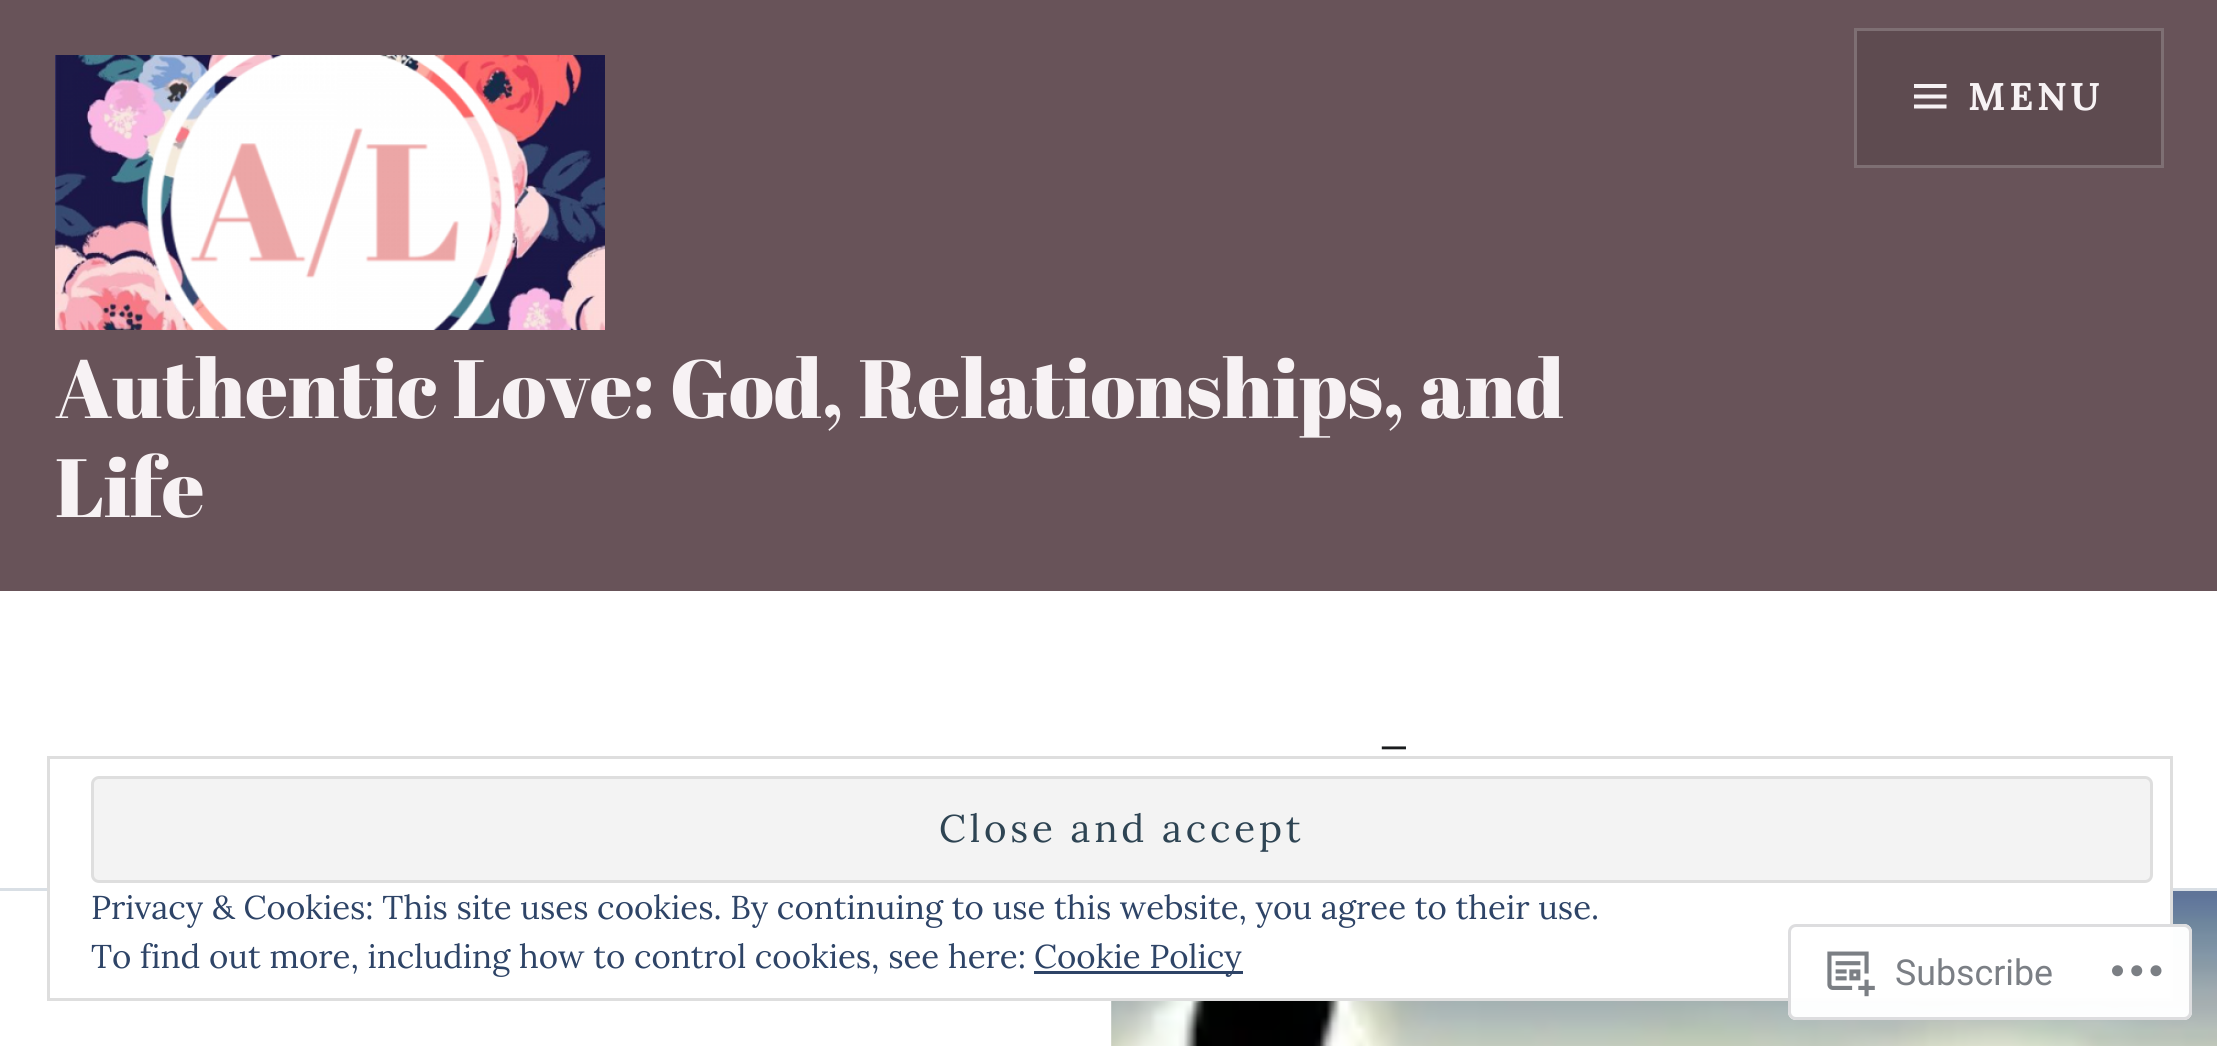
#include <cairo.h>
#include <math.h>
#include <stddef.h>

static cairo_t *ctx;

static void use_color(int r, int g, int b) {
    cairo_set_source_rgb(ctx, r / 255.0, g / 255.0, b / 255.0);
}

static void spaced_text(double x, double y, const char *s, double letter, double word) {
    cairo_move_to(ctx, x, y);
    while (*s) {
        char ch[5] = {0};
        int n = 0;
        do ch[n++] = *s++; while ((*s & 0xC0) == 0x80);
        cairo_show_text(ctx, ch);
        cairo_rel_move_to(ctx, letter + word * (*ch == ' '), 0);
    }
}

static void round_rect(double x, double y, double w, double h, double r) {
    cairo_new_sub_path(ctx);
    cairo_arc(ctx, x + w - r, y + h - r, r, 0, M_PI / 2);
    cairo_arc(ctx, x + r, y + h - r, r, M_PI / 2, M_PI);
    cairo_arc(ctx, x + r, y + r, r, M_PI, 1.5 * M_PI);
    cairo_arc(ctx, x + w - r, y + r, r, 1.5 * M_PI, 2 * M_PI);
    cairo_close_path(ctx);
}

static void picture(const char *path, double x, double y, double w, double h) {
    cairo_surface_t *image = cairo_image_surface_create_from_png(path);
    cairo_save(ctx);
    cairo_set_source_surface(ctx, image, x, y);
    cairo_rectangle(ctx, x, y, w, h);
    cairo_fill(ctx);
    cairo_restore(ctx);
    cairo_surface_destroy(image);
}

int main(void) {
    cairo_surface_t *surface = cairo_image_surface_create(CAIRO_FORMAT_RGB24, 2217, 1046);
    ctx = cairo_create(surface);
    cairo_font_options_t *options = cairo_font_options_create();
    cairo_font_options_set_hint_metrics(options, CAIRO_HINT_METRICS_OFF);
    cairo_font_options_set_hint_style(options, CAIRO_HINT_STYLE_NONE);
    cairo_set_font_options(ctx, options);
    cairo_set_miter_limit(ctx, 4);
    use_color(255, 255, 255);
    cairo_paint(ctx);
    use_color(104, 83, 89);
    cairo_rectangle(ctx, 0, 0, 2217, 591);
    cairo_fill(ctx);
    use_color(94, 75, 80);
    cairo_rectangle(ctx, 1855.5, 29.5, 307, 137);
    cairo_fill_preserve(ctx);
    use_color(126, 111, 115);
    cairo_set_line_width(ctx, 3);
    cairo_stroke(ctx);
    use_color(247, 242, 244);
    cairo_new_path(ctx);
    cairo_move_to(ctx, 1914, 108.5);
    cairo_line_to(ctx, 1914, 104.5);
    cairo_line_to(ctx, 1946.5, 104.5);
    cairo_line_to(ctx, 1946.5, 108.5);
    cairo_close_path(ctx);
    cairo_move_to(ctx, 1914, 84);
    cairo_line_to(ctx, 1946.5, 84);
    cairo_line_to(ctx, 1946.5, 88);
    cairo_line_to(ctx, 1914, 88);
    cairo_close_path(ctx);
    cairo_move_to(ctx, 1914, 98.5);
    cairo_line_to(ctx, 1914, 94.5);
    cairo_line_to(ctx, 1946.5, 94.5);
    cairo_line_to(ctx, 1946.5, 98.5);
    cairo_close_path(ctx);
    cairo_fill(ctx);
    cairo_select_font_face(ctx, "Lora", CAIRO_FONT_SLANT_NORMAL, CAIRO_FONT_WEIGHT_BOLD);
    cairo_set_font_size(ctx, 38.5);
    spaced_text(1968, 110, "MENU", 3.8, 0);
    picture("img1.png", 55, 55, 550, 275);
    cairo_select_font_face(ctx, "Abril Fatface", CAIRO_FONT_SLANT_NORMAL, CAIRO_FONT_WEIGHT_NORMAL);
    cairo_set_font_size(ctx, 82.5);
    cairo_move_to(ctx, 55, 418);
    cairo_show_text(ctx, "Authentic Love: God, Relationships, and");
    cairo_move_to(ctx, 55, 517);
    cairo_show_text(ctx, "Life");
    use_color(217, 223, 229);
    cairo_rectangle(ctx, 0, 888, 2217, 3);
    cairo_fill(ctx);
    cairo_set_font_size(ctx, 96);
    use_color(26, 28, 30);
    cairo_move_to(ctx, 1377, 776);
    cairo_show_text(ctx, "-");
    picture("img2.png", 1111, 891, 1106, 155);
    use_color(255, 255, 255);
    cairo_rectangle(ctx, 50, 888, 2120, 110);
    cairo_fill(ctx);
    cairo_rectangle(ctx, 48.5, 757.5, 2123, 242);
    use_color(222, 222, 222);
    cairo_stroke(ctx);
    use_color(243, 243, 243);
    round_rect(92.5, 777.5, 2059, 104, 6.5);
    cairo_fill_preserve(ctx);
    use_color(222, 222, 222);
    cairo_stroke(ctx);
    cairo_select_font_face(ctx, "Lora", CAIRO_FONT_SLANT_NORMAL, CAIRO_FONT_WEIGHT_NORMAL);
    cairo_set_font_size(ctx, 38.5);
    use_color(46, 68, 83);
    spaced_text(939, 842, "Close and accept", 3.8, 0);
    cairo_set_font_size(ctx, 33);
    use_color(46, 68, 103);
    cairo_move_to(ctx, 91, 919);
    cairo_show_text(ctx, "Privacy & Cookies: This site uses cookies. By continuing to use this website, you agree to their use.");
    cairo_move_to(ctx, 91, 968);
    cairo_show_text(ctx, "To find out more, including how to control cookies, see here:");
    cairo_rectangle(ctx, 1034, 971, 209, 3);
    cairo_fill(ctx);
    cairo_move_to(ctx, 1034, 968);
    cairo_show_text(ctx, "Cookie Policy");
    cairo_set_source_rgba(ctx, 1, 1, 1, 0.98);
    round_rect(1788, 924, 404, 96, 8);
    cairo_fill(ctx);
    round_rect(1789.5, 925.5, 401, 93, 6.5);
    cairo_set_source_rgba(ctx, 0.863, 0.863, 0.871, 0.98);
    cairo_stroke(ctx);
    picture("img3.png", 1827, 951, 48, 46);
    cairo_select_font_face(ctx, "Roboto", CAIRO_FONT_SLANT_NORMAL, CAIRO_FONT_WEIGHT_NORMAL);
    cairo_set_font_size(ctx, 35.75);
    use_color(123, 127, 133);
    cairo_move_to(ctx, 1895, 985);
    cairo_show_text(ctx, "Subscribe");
    picture("img4.png", 2112, 965, 50, 12);
    cairo_surface_write_to_png(surface, "result.png");
    cairo_font_options_destroy(options);
    cairo_destroy(ctx);
    cairo_surface_destroy(surface);
    return 0;
}
